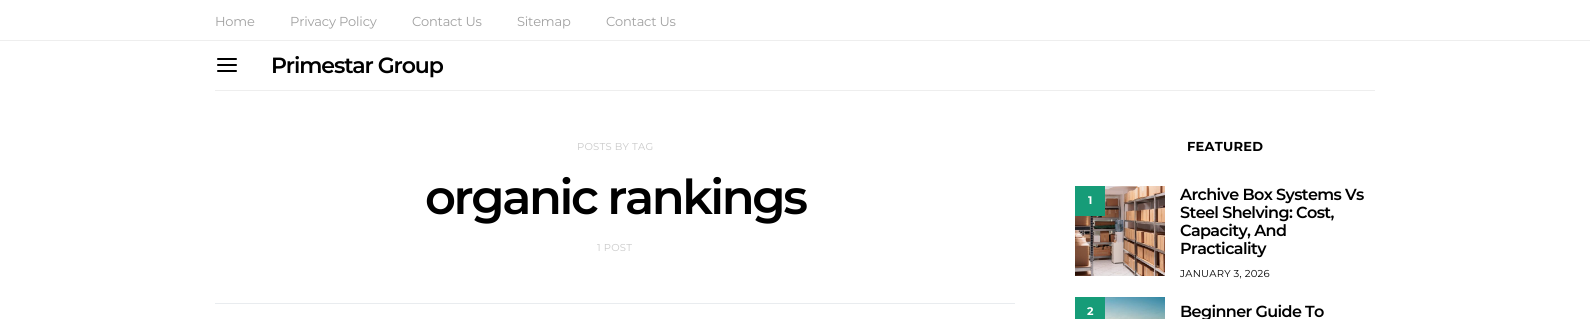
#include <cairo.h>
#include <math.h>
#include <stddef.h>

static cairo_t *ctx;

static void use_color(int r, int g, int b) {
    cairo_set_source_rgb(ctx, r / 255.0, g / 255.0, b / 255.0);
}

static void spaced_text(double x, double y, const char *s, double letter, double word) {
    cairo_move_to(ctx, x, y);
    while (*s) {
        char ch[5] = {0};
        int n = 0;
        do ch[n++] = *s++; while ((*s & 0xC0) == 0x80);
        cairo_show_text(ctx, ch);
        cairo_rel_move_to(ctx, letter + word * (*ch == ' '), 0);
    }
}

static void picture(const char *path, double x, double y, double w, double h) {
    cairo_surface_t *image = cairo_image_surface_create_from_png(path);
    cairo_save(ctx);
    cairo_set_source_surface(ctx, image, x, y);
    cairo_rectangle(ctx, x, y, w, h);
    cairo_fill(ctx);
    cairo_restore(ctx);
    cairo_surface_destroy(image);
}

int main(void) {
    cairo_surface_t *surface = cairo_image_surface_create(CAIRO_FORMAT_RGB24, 1590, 319);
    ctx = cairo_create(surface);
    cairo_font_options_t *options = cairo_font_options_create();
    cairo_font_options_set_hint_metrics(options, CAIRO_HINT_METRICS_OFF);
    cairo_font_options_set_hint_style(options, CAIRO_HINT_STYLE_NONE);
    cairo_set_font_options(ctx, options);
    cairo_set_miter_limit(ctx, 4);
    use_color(255, 255, 255);
    cairo_paint(ctx);
    use_color(238, 238, 238);
    cairo_rectangle(ctx, 0, 40, 1590, 1);
    cairo_fill(ctx);
    cairo_select_font_face(ctx, "Montserrat", CAIRO_FONT_SLANT_NORMAL, CAIRO_FONT_WEIGHT_NORMAL);
    cairo_set_font_size(ctx, 13);
    use_color(160, 160, 160);
    spaced_text(215, 26, "Home", -0.2, 0);
    spaced_text(290, 26, "Privacy Policy", -0.2, 0);
    spaced_text(412, 26, "Contact Us", -0.2, 0);
    spaced_text(517, 26, "Sitemap", -0.2, 0);
    spaced_text(606, 26, "Contact Us", -0.2, 0);
    use_color(238, 238, 238);
    cairo_rectangle(ctx, 215, 90, 1160, 1);
    cairo_fill(ctx);
    picture("img1.png", 217, 58, 20, 14);
    cairo_select_font_face(ctx, "Montserrat SemiBold", CAIRO_FONT_SLANT_NORMAL, CAIRO_FONT_WEIGHT_NORMAL);
    cairo_set_font_size(ctx, 22);
    use_color(0, 0, 0);
    spaced_text(271, 73, "Primestar Group", -1.1, 0);
    cairo_select_font_face(ctx, "Montserrat", CAIRO_FONT_SLANT_NORMAL, CAIRO_FONT_WEIGHT_NORMAL);
    cairo_set_font_size(ctx, 10);
    use_color(201, 201, 201);
    spaced_text(577, 150, "POSTS BY TAG", 0.25, 0);
    cairo_select_font_face(ctx, "Montserrat SemiBold", CAIRO_FONT_SLANT_NORMAL, CAIRO_FONT_WEIGHT_NORMAL);
    cairo_set_font_size(ctx, 48);
    use_color(0, 0, 0);
    spaced_text(425, 214, "organic rankings", -2.4, 0);
    cairo_select_font_face(ctx, "Montserrat", CAIRO_FONT_SLANT_NORMAL, CAIRO_FONT_WEIGHT_NORMAL);
    cairo_set_font_size(ctx, 10);
    use_color(201, 201, 201);
    spaced_text(597, 251, "1 POST", 0.25, 0);
    use_color(233, 236, 239);
    cairo_rectangle(ctx, 215, 303, 800, 1);
    cairo_fill(ctx);
    cairo_select_font_face(ctx, "Montserrat", CAIRO_FONT_SLANT_NORMAL, CAIRO_FONT_WEIGHT_BOLD);
    cairo_set_font_size(ctx, 13);
    use_color(0, 0, 0);
    spaced_text(1187, 151, "FEATURED", 0.25, 0);
    picture("img2.png", 1075, 186, 90, 90);
    use_color(22, 156, 120);
    cairo_rectangle(ctx, 1075, 186, 30, 30);
    cairo_fill(ctx);
    cairo_set_font_size(ctx, 11);
    use_color(255, 255, 255);
    cairo_move_to(ctx, 1088, 204);
    cairo_show_text(ctx, "1");
    cairo_select_font_face(ctx, "Montserrat SemiBold", CAIRO_FONT_SLANT_NORMAL, CAIRO_FONT_WEIGHT_NORMAL);
    cairo_set_font_size(ctx, 16);
    use_color(0, 0, 0);
    spaced_text(1180, 200, "Archive Box Systems Vs", -0.6, 0);
    spaced_text(1180, 218, "Steel Shelving: Cost,", -0.6, 0);
    spaced_text(1180, 236, "Capacity, And", -0.6, 0);
    spaced_text(1180, 254, "Practicality", -0.6, 0);
    cairo_select_font_face(ctx, "Montserrat", CAIRO_FONT_SLANT_NORMAL, CAIRO_FONT_WEIGHT_NORMAL);
    cairo_set_font_size(ctx, 10);
    spaced_text(1180, 277, "JANUARY 3, 2026", 0.25, 0);
    use_color(22, 156, 120);
    cairo_rectangle(ctx, 1075, 297, 30, 22);
    cairo_fill(ctx);
    cairo_select_font_face(ctx, "Montserrat", CAIRO_FONT_SLANT_NORMAL, CAIRO_FONT_WEIGHT_BOLD);
    cairo_set_font_size(ctx, 11);
    use_color(255, 255, 255);
    cairo_move_to(ctx, 1087, 315);
    cairo_show_text(ctx, "2");
    picture("img3.png", 1105, 297, 60, 22);
    cairo_select_font_face(ctx, "Montserrat SemiBold", CAIRO_FONT_SLANT_NORMAL, CAIRO_FONT_WEIGHT_NORMAL);
    cairo_set_font_size(ctx, 16);
    use_color(0, 0, 0);
    spaced_text(1180, 317, "Beginner Guide To", -0.6, 0);
    cairo_surface_write_to_png(surface, "result.png");
    cairo_font_options_destroy(options);
    cairo_destroy(ctx);
    cairo_surface_destroy(surface);
    return 0;
}
